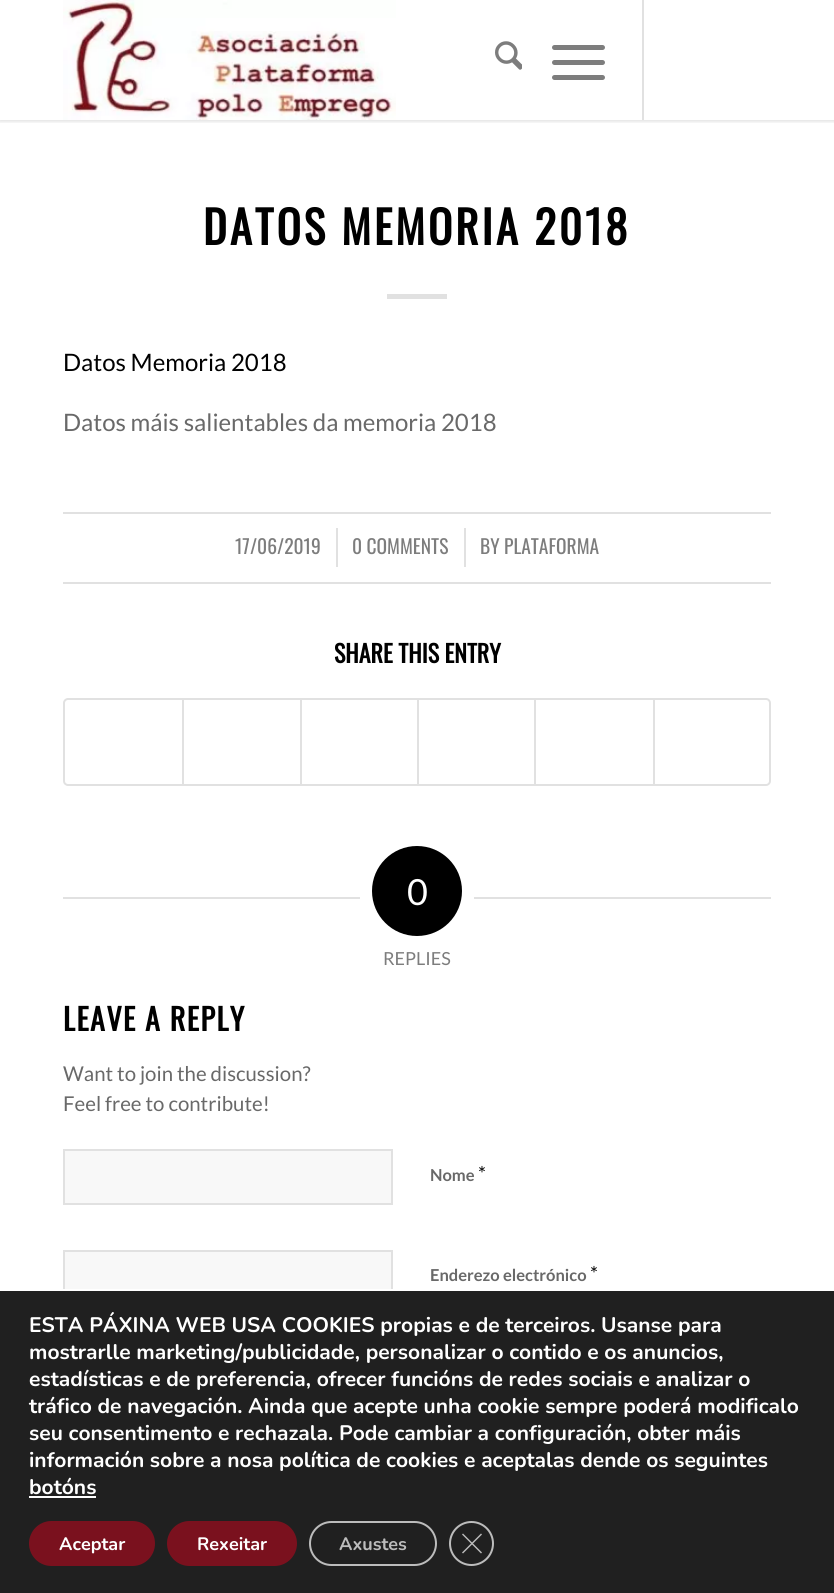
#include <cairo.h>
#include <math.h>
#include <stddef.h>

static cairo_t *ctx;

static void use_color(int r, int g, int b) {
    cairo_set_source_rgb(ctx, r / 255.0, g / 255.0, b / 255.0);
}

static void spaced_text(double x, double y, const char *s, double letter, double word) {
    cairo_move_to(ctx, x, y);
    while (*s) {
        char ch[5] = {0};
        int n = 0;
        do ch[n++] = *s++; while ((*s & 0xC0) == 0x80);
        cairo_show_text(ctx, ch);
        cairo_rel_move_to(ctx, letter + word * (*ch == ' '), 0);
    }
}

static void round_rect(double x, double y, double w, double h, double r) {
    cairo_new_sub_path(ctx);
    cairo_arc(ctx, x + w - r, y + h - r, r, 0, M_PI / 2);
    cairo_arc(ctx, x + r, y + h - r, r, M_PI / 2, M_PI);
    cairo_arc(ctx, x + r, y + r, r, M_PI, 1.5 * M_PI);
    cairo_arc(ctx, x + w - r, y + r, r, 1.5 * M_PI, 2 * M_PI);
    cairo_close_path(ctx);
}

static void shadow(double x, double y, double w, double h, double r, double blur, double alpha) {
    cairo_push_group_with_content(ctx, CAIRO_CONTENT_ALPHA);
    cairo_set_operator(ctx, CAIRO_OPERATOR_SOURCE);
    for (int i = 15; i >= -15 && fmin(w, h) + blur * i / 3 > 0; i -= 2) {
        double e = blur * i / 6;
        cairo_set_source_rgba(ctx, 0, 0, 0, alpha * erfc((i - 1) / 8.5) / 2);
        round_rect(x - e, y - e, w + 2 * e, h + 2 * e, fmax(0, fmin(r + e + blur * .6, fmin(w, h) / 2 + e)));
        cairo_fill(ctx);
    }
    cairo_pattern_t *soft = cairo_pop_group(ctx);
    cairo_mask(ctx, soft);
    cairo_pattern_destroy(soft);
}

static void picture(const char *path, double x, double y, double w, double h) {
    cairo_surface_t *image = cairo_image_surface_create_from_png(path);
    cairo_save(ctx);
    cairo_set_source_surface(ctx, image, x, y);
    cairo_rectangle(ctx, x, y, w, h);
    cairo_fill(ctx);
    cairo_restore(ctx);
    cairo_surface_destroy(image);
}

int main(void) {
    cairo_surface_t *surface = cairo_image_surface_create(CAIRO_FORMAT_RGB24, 834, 1593);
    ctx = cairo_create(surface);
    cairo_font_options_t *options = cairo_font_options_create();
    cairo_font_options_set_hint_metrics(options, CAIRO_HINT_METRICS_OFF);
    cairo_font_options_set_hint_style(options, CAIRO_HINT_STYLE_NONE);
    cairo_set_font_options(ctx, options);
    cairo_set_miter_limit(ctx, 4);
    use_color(255, 255, 255);
    cairo_paint(ctx);
    cairo_save(ctx);
    cairo_rectangle(ctx, 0, 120, 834, 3);
    cairo_clip(ctx);
    use_color(0, 0, 0);
    shadow(-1, -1, 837, 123, 0, 1.5, 0.1);
    cairo_restore(ctx);
    picture("img1.png", 63, 0, 333, 120);
    use_color(225, 225, 225);
    cairo_rectangle(ctx, 642, 0, 2, 120);
    cairo_fill(ctx);
    picture("img2.png", 495, 41, 27, 29);
    use_color(125, 125, 125);
    round_rect(552, 60, 53, 5, 2.5);
    cairo_fill(ctx);
    round_rect(552, 45, 53, 5, 2.5);
    cairo_fill(ctx);
    round_rect(552, 75, 53, 5, 2.5);
    cairo_fill(ctx);
    cairo_select_font_face(ctx, "Oswald", CAIRO_FONT_SLANT_NORMAL, CAIRO_FONT_WEIGHT_BOLD);
    cairo_set_font_size(ctx, 45);
    use_color(0, 0, 0);
    spaced_text(203, 245, "DATOS MEMORIA 2018", 3, 0);
    use_color(225, 225, 225);
    cairo_rectangle(ctx, 387, 294, 60, 5);
    cairo_fill(ctx);
    cairo_select_font_face(ctx, "Lato", CAIRO_FONT_SLANT_NORMAL, CAIRO_FONT_WEIGHT_NORMAL);
    cairo_set_font_size(ctx, 24);
    use_color(0, 0, 0);
    cairo_move_to(ctx, 63, 371);
    cairo_show_text(ctx, "Datos Memoria 2018");
    use_color(105, 105, 105);
    cairo_move_to(ctx, 63, 431);
    cairo_show_text(ctx, "Datos máis salientables da memoria 2018");
    use_color(225, 225, 225);
    cairo_rectangle(ctx, 63, 512, 708, 2);
    cairo_fill(ctx);
    cairo_rectangle(ctx, 63, 582, 708, 2);
    cairo_fill(ctx);
    cairo_select_font_face(ctx, "Oswald", CAIRO_FONT_SLANT_NORMAL, CAIRO_FONT_WEIGHT_NORMAL);
    cairo_set_font_size(ctx, 19.5);
    use_color(125, 125, 125);
    cairo_move_to(ctx, 235, 554);
    cairo_show_text(ctx, "17/06/2019");
    use_color(225, 225, 225);
    cairo_rectangle(ctx, 336, 528, 2, 39);
    cairo_fill(ctx);
    use_color(125, 125, 125);
    cairo_move_to(ctx, 352, 554);
    cairo_show_text(ctx, "0 COMMENTS");
    use_color(225, 225, 225);
    cairo_rectangle(ctx, 464, 528, 2, 39);
    cairo_fill(ctx);
    use_color(125, 125, 125);
    cairo_move_to(ctx, 480, 554);
    cairo_show_text(ctx, "BY PLATAFORMA");
    cairo_select_font_face(ctx, "Oswald", CAIRO_FONT_SLANT_NORMAL, CAIRO_FONT_WEIGHT_BOLD);
    cairo_set_font_size(ctx, 24);
    use_color(0, 0, 0);
    cairo_move_to(ctx, 334, 663);
    cairo_show_text(ctx, "SHARE THIS ENTRY");
    round_rect(64, 699, 706, 86, 4);
    use_color(225, 225, 225);
    cairo_stroke(ctx);
    cairo_rectangle(ctx, 182, 699, 2, 86);
    cairo_fill(ctx);
    cairo_rectangle(ctx, 300, 699, 2, 86);
    cairo_fill(ctx);
    cairo_rectangle(ctx, 417, 699, 2, 86);
    cairo_fill(ctx);
    cairo_rectangle(ctx, 534, 699, 2, 86);
    cairo_fill(ctx);
    cairo_rectangle(ctx, 653, 699, 2, 86);
    cairo_fill(ctx);
    cairo_rectangle(ctx, 63, 897, 297, 2);
    cairo_fill(ctx);
    use_color(0, 0, 0);
    cairo_arc(ctx, 417, 891, 45, 0, 2 * M_PI);
    cairo_fill(ctx);
    cairo_select_font_face(ctx, "Lato", CAIRO_FONT_SLANT_NORMAL, CAIRO_FONT_WEIGHT_NORMAL);
    cairo_set_font_size(ctx, 36);
    use_color(255, 255, 255);
    cairo_move_to(ctx, 407, 905);
    cairo_show_text(ctx, "0");
    use_color(225, 225, 225);
    cairo_rectangle(ctx, 474, 897, 297, 2);
    cairo_fill(ctx);
    cairo_set_font_size(ctx, 18);
    use_color(125, 125, 125);
    cairo_move_to(ctx, 383, 965);
    cairo_show_text(ctx, "REPLIES");
    cairo_select_font_face(ctx, "Oswald", CAIRO_FONT_SLANT_NORMAL, CAIRO_FONT_WEIGHT_BOLD);
    cairo_set_font_size(ctx, 30);
    use_color(0, 0, 0);
    spaced_text(63, 1031, "LEAVE A REPLY", 1.5, 0);
    cairo_select_font_face(ctx, "Lato", CAIRO_FONT_SLANT_NORMAL, CAIRO_FONT_WEIGHT_NORMAL);
    cairo_set_font_size(ctx, 20.4);
    use_color(105, 105, 105);
    cairo_move_to(ctx, 63, 1081);
    cairo_show_text(ctx, "Want to join the discussion?");
    cairo_move_to(ctx, 63, 1111);
    cairo_show_text(ctx, "Feel free to contribute!");
    use_color(248, 248, 248);
    cairo_rectangle(ctx, 64, 1150, 328, 54);
    cairo_fill_preserve(ctx);
    use_color(225, 225, 225);
    cairo_stroke(ctx);
    cairo_select_font_face(ctx, "Lato", CAIRO_FONT_SLANT_NORMAL, CAIRO_FONT_WEIGHT_BOLD);
    cairo_set_font_size(ctx, 16.5);
    use_color(105, 105, 105);
    cairo_move_to(ctx, 430, 1181);
    cairo_show_text(ctx, "Nome");
    cairo_select_font_face(ctx, "Lato", CAIRO_FONT_SLANT_NORMAL, CAIRO_FONT_WEIGHT_NORMAL);
    cairo_set_font_size(ctx, 20);
    use_color(0, 0, 0);
    cairo_move_to(ctx, 478, 1181);
    cairo_show_text(ctx, "*");
    use_color(248, 248, 248);
    cairo_rectangle(ctx, 65, 1252, 326, 37);
    cairo_fill(ctx);
    cairo_rectangle(ctx, 64, 1251, 328, 53);
    use_color(225, 225, 225);
    cairo_stroke(ctx);
    cairo_select_font_face(ctx, "Lato", CAIRO_FONT_SLANT_NORMAL, CAIRO_FONT_WEIGHT_BOLD);
    cairo_set_font_size(ctx, 16.5);
    use_color(105, 105, 105);
    cairo_move_to(ctx, 430, 1281);
    cairo_show_text(ctx, "Enderezo electrónico");
    cairo_select_font_face(ctx, "Lato", CAIRO_FONT_SLANT_NORMAL, CAIRO_FONT_WEIGHT_NORMAL);
    cairo_set_font_size(ctx, 20);
    use_color(0, 0, 0);
    cairo_move_to(ctx, 590, 1281);
    cairo_show_text(ctx, "*");
    use_color(32, 32, 32);
    cairo_rectangle(ctx, 0, 1291, 834, 302);
    cairo_fill(ctx);
    use_color(255, 255, 255);
    cairo_rectangle(ctx, 63, 1289, 330, 2);
    cairo_fill(ctx);
    cairo_select_font_face(ctx, "Nunito", CAIRO_FONT_SLANT_NORMAL, CAIRO_FONT_WEIGHT_BOLD);
    cairo_set_font_size(ctx, 21);
    cairo_move_to(ctx, 29, 1332);
    cairo_show_text(ctx, "ESTA PÁXINA WEB USA COOKIES propias e de terceiros. Usanse para");
    cairo_move_to(ctx, 29, 1359);
    cairo_show_text(ctx, "mostrarlle marketing/publicidade, personalizar o contido e os anuncios,");
    cairo_move_to(ctx, 29, 1386);
    cairo_show_text(ctx, "estadísticas e de preferencia, ofrecer funcións de redes sociais e analizar o");
    cairo_move_to(ctx, 29, 1413);
    cairo_show_text(ctx, "tráfico de navegación. Ainda que acepte unha cookie sempre poderá modificalo");
    cairo_move_to(ctx, 29, 1440);
    cairo_show_text(ctx, "seu consentimento e rechazala. Pode cambiar a configuración, obter máis");
    cairo_move_to(ctx, 29, 1467);
    cairo_show_text(ctx, "información sobre a nosa política de cookies e aceptalas dende os seguintes");
    cairo_move_to(ctx, 29, 1494);
    cairo_show_text(ctx, "botóns");
    cairo_rectangle(ctx, 29, 1496, 67, 2);
    cairo_fill(ctx);
    use_color(122, 17, 30);
    round_rect(29, 1521, 126, 45, 22.5);
    cairo_fill(ctx);
    cairo_set_font_size(ctx, 18);
    use_color(255, 255, 255);
    cairo_move_to(ctx, 59, 1550);
    cairo_show_text(ctx, "Aceptar");
    use_color(122, 17, 30);
    round_rect(167, 1521, 130, 45, 22.5);
    cairo_fill(ctx);
    use_color(255, 255, 255);
    cairo_move_to(ctx, 197, 1550);
    cairo_show_text(ctx, "Rexeitar");
    round_rect(310, 1522, 126, 43, 21.5);
    use_color(188, 188, 188);
    cairo_stroke(ctx);
    cairo_move_to(ctx, 339, 1550);
    cairo_show_text(ctx, "Axustes");
    cairo_new_path(ctx);
    cairo_arc(ctx, 471.5, 1543.5, 21.5, 0, 2 * M_PI);
    cairo_stroke(ctx);
    cairo_new_path(ctx);
    cairo_move_to(ctx, 481, 1533.5);
    cairo_line_to(ctx, 482, 1534.5);
    cairo_line_to(ctx, 463, 1553.5);
    cairo_line_to(ctx, 462, 1552.5);
    cairo_close_path(ctx);
    cairo_fill(ctx);
    cairo_new_path(ctx);
    cairo_move_to(ctx, 462, 1534.5);
    cairo_line_to(ctx, 463, 1533.5);
    cairo_line_to(ctx, 482, 1552.5);
    cairo_line_to(ctx, 481, 1553.5);
    cairo_close_path(ctx);
    cairo_fill(ctx);
    cairo_surface_write_to_png(surface, "result.png");
    cairo_font_options_destroy(options);
    cairo_destroy(ctx);
    cairo_surface_destroy(surface);
    return 0;
}
